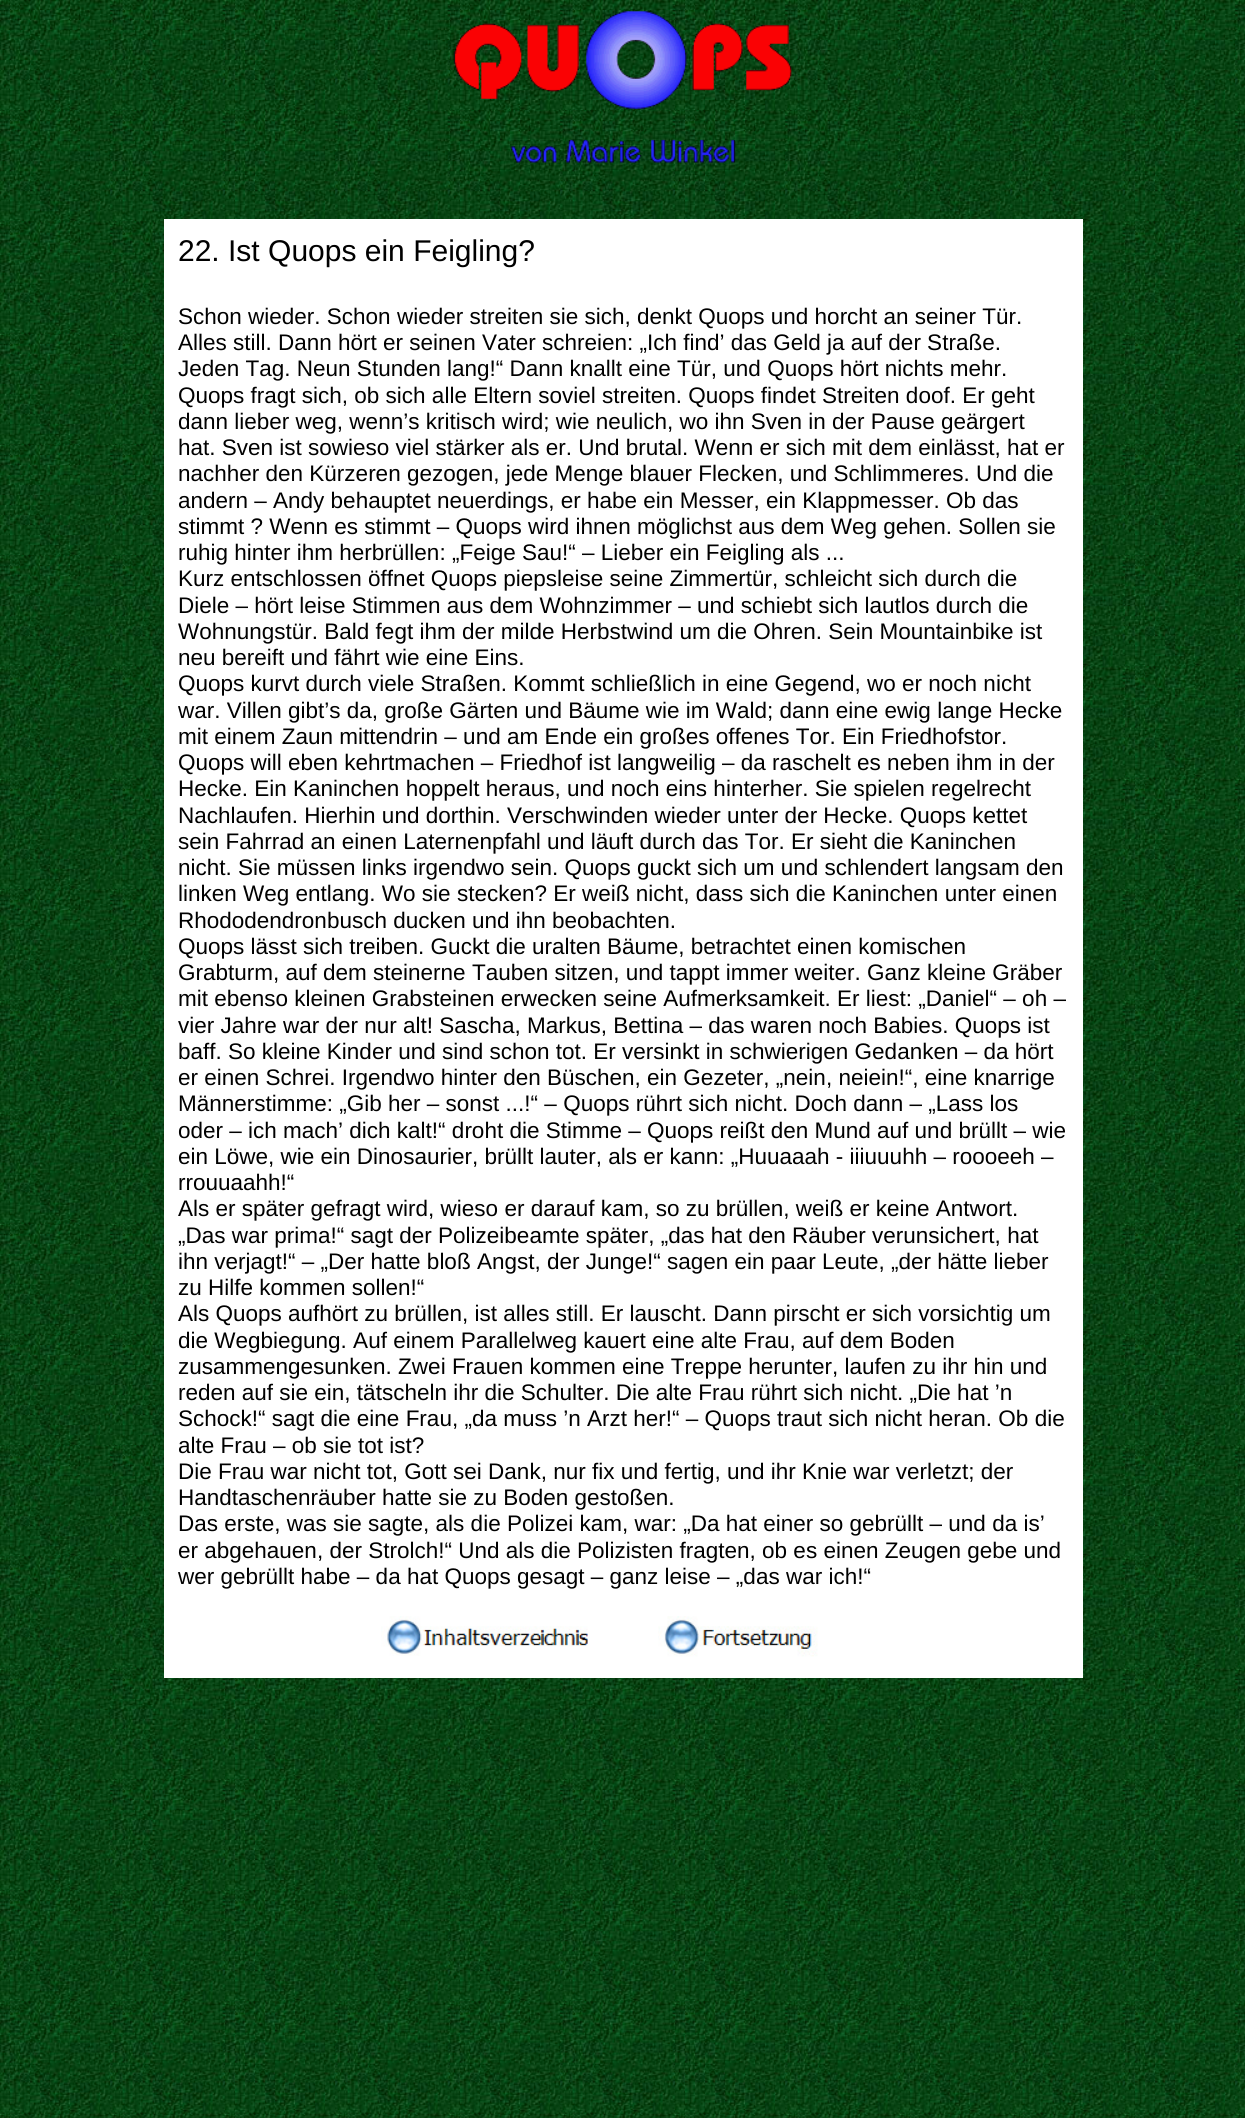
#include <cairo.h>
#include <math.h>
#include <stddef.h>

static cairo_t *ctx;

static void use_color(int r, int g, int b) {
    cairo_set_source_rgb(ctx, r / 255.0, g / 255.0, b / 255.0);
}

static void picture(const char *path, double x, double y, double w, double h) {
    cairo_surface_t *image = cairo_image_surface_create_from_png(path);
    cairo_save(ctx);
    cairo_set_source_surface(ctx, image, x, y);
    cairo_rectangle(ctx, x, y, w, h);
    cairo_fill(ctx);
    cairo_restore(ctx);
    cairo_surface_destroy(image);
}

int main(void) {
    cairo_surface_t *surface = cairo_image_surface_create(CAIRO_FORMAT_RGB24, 1245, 2118);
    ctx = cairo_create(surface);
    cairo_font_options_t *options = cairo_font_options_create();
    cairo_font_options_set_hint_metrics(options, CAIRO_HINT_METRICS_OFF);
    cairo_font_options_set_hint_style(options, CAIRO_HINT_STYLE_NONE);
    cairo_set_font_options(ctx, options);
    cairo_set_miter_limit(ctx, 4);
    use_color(255, 255, 255);
    cairo_paint(ctx);
    picture("img1.png", 0, 0, 1245, 2118);
    picture("img2.png", 453, 11, 339, 152);
    use_color(255, 255, 255);
    cairo_rectangle(ctx, 164, 219, 919, 1459);
    cairo_fill(ctx);
    cairo_select_font_face(ctx, "Liberation Sans", CAIRO_FONT_SLANT_NORMAL, CAIRO_FONT_WEIGHT_NORMAL);
    cairo_set_font_size(ctx, 30);
    use_color(0, 0, 0);
    cairo_move_to(ctx, 178, 261);
    cairo_show_text(ctx, "22. Ist Quops ein Feigling?");
    cairo_set_font_size(ctx, 22.5);
    cairo_move_to(ctx, 178, 324);
    cairo_show_text(ctx, "Schon wieder. Schon wieder streiten sie sich, denkt Quops und horcht an seiner Tür.");
    cairo_move_to(ctx, 178, 350);
    cairo_show_text(ctx, "Alles still. Dann hört er seinen Vater schreien: „Ich find’ das Geld ja auf der Straße.");
    cairo_move_to(ctx, 178, 376);
    cairo_show_text(ctx, "Jeden Tag. Neun Stunden lang!“ Dann knallt eine Tür, und Quops hört nichts mehr.");
    cairo_move_to(ctx, 178, 403);
    cairo_show_text(ctx, "Quops fragt sich, ob sich alle Eltern soviel streiten. Quops findet Streiten doof. Er geht");
    cairo_move_to(ctx, 178, 429);
    cairo_show_text(ctx, "dann lieber weg, wenn’s kritisch wird; wie neulich, wo ihn Sven in der Pause geärgert");
    cairo_move_to(ctx, 178, 455);
    cairo_show_text(ctx, "hat. Sven ist sowieso viel stärker als er. Und brutal. Wenn er sich mit dem einlässt, hat er");
    cairo_move_to(ctx, 178, 481);
    cairo_show_text(ctx, "nachher den Kürzeren gezogen, jede Menge blauer Flecken, und Schlimmeres. Und die");
    cairo_move_to(ctx, 178, 508);
    cairo_show_text(ctx, "andern – Andy behauptet neuerdings, er habe ein Messer, ein Klappmesser. Ob das");
    cairo_move_to(ctx, 178, 534);
    cairo_show_text(ctx, "stimmt ? Wenn es stimmt – Quops wird ihnen möglichst aus dem Weg gehen. Sollen sie");
    cairo_move_to(ctx, 178, 560);
    cairo_show_text(ctx, "ruhig hinter ihm herbrüllen: „Feige Sau!“ – Lieber ein Feigling als ...");
    cairo_move_to(ctx, 178, 586);
    cairo_show_text(ctx, "Kurz entschlossen öffnet Quops piepsleise seine Zimmertür, schleicht sich durch die");
    cairo_move_to(ctx, 178, 613);
    cairo_show_text(ctx, "Diele – hört leise Stimmen aus dem Wohnzimmer – und schiebt sich lautlos durch die");
    cairo_move_to(ctx, 178, 639);
    cairo_show_text(ctx, "Wohnungstür. Bald fegt ihm der milde Herbstwind um die Ohren. Sein Mountainbike ist");
    cairo_move_to(ctx, 178, 665);
    cairo_show_text(ctx, "neu bereift und fährt wie eine Eins.");
    cairo_move_to(ctx, 178, 691);
    cairo_show_text(ctx, "Quops kurvt durch viele Straßen. Kommt schließlich in eine Gegend, wo er noch nicht");
    cairo_move_to(ctx, 178, 718);
    cairo_show_text(ctx, "war. Villen gibt’s da, große Gärten und Bäume wie im Wald; dann eine ewig lange Hecke");
    cairo_move_to(ctx, 178, 744);
    cairo_show_text(ctx, "mit einem Zaun mittendrin – und am Ende ein großes offenes Tor. Ein Friedhofstor.");
    cairo_move_to(ctx, 178, 770);
    cairo_show_text(ctx, "Quops will eben kehrtmachen – Friedhof ist langweilig – da raschelt es neben ihm in der");
    cairo_move_to(ctx, 178, 796);
    cairo_show_text(ctx, "Hecke. Ein Kaninchen hoppelt heraus, und noch eins hinterher. Sie spielen regelrecht");
    cairo_move_to(ctx, 178, 823);
    cairo_show_text(ctx, "Nachlaufen. Hierhin und dorthin. Verschwinden wieder unter der Hecke. Quops kettet");
    cairo_move_to(ctx, 178, 849);
    cairo_show_text(ctx, "sein Fahrrad an einen Laternenpfahl und läuft durch das Tor. Er sieht die Kaninchen");
    cairo_move_to(ctx, 178, 875);
    cairo_show_text(ctx, "nicht. Sie müssen links irgendwo sein. Quops guckt sich um und schlendert langsam den");
    cairo_move_to(ctx, 178, 901);
    cairo_show_text(ctx, "linken Weg entlang. Wo sie stecken? Er weiß nicht, dass sich die Kaninchen unter einen");
    cairo_move_to(ctx, 178, 928);
    cairo_show_text(ctx, "Rhododendronbusch ducken und ihn beobachten.");
    cairo_move_to(ctx, 178, 954);
    cairo_show_text(ctx, "Quops lässt sich treiben. Guckt die uralten Bäume, betrachtet einen komischen");
    cairo_move_to(ctx, 178, 980);
    cairo_show_text(ctx, "Grabturm, auf dem steinerne Tauben sitzen, und tappt immer weiter. Ganz kleine Gräber");
    cairo_move_to(ctx, 178, 1006);
    cairo_show_text(ctx, "mit ebenso kleinen Grabsteinen erwecken seine Aufmerksamkeit. Er liest: „Daniel“ – oh –");
    cairo_move_to(ctx, 178, 1033);
    cairo_show_text(ctx, "vier Jahre war der nur alt! Sascha, Markus, Bettina – das waren noch Babies. Quops ist");
    cairo_move_to(ctx, 178, 1059);
    cairo_show_text(ctx, "baff. So kleine Kinder und sind schon tot. Er versinkt in schwierigen Gedanken – da hört");
    cairo_move_to(ctx, 178, 1085);
    cairo_show_text(ctx, "er einen Schrei. Irgendwo hinter den Büschen, ein Gezeter, „nein, neiein!“, eine knarrige");
    cairo_move_to(ctx, 178, 1111);
    cairo_show_text(ctx, "Männerstimme: „Gib her – sonst ...!“ – Quops rührt sich nicht. Doch dann – „Lass los");
    cairo_move_to(ctx, 178, 1138);
    cairo_show_text(ctx, "oder – ich mach’ dich kalt!“ droht die Stimme – Quops reißt den Mund auf und brüllt – wie");
    cairo_move_to(ctx, 178, 1164);
    cairo_show_text(ctx, "ein Löwe, wie ein Dinosaurier, brüllt lauter, als er kann: „Huuaaah - iiiuuuhh – roooeeh –");
    cairo_move_to(ctx, 178, 1190);
    cairo_show_text(ctx, "rrouuaahh!“");
    cairo_move_to(ctx, 178, 1216);
    cairo_show_text(ctx, "Als er später gefragt wird, wieso er darauf kam, so zu brüllen, weiß er keine Antwort.");
    cairo_move_to(ctx, 178, 1243);
    cairo_show_text(ctx, "„Das war prima!“ sagt der Polizeibeamte später, „das hat den Räuber verunsichert, hat");
    cairo_move_to(ctx, 178, 1269);
    cairo_show_text(ctx, "ihn verjagt!“ – „Der hatte bloß Angst, der Junge!“ sagen ein paar Leute, „der hätte lieber");
    cairo_move_to(ctx, 178, 1295);
    cairo_show_text(ctx, "zu Hilfe kommen sollen!“");
    cairo_move_to(ctx, 178, 1321);
    cairo_show_text(ctx, "Als Quops aufhört zu brüllen, ist alles still. Er lauscht. Dann pirscht er sich vorsichtig um");
    cairo_move_to(ctx, 178, 1348);
    cairo_show_text(ctx, "die Wegbiegung. Auf einem Parallelweg kauert eine alte Frau, auf dem Boden");
    cairo_move_to(ctx, 178, 1374);
    cairo_show_text(ctx, "zusammengesunken. Zwei Frauen kommen eine Treppe herunter, laufen zu ihr hin und");
    cairo_move_to(ctx, 178, 1400);
    cairo_show_text(ctx, "reden auf sie ein, tätscheln ihr die Schulter. Die alte Frau rührt sich nicht. „Die hat ’n");
    cairo_move_to(ctx, 178, 1426);
    cairo_show_text(ctx, "Schock!“ sagt die eine Frau, „da muss ’n Arzt her!“ – Quops traut sich nicht heran. Ob die");
    cairo_move_to(ctx, 178, 1453);
    cairo_show_text(ctx, "alte Frau – ob sie tot ist?");
    cairo_move_to(ctx, 178, 1479);
    cairo_show_text(ctx, "Die Frau war nicht tot, Gott sei Dank, nur fix und fertig, und ihr Knie war verletzt; der");
    cairo_move_to(ctx, 178, 1505);
    cairo_show_text(ctx, "Handtaschenräuber hatte sie zu Boden gestoßen.");
    cairo_move_to(ctx, 178, 1531);
    cairo_show_text(ctx, "Das erste, was sie sagte, als die Polizei kam, war: „Da hat einer so gebrüllt – und da is’");
    cairo_move_to(ctx, 178, 1558);
    cairo_show_text(ctx, "er abgehauen, der Strolch!“ Und als die Polizisten fragten, ob es einen Zeugen gebe und");
    cairo_move_to(ctx, 178, 1584);
    cairo_show_text(ctx, "wer gebrüllt habe – da hat Quops gesagt – ganz leise – „das war ich!“");
    picture("img3.png", 381, 1616, 207, 40);
    picture("img4.png", 658, 1616, 160, 41);
    cairo_surface_write_to_png(surface, "result.png");
    cairo_font_options_destroy(options);
    cairo_destroy(ctx);
    cairo_surface_destroy(surface);
    return 0;
}
